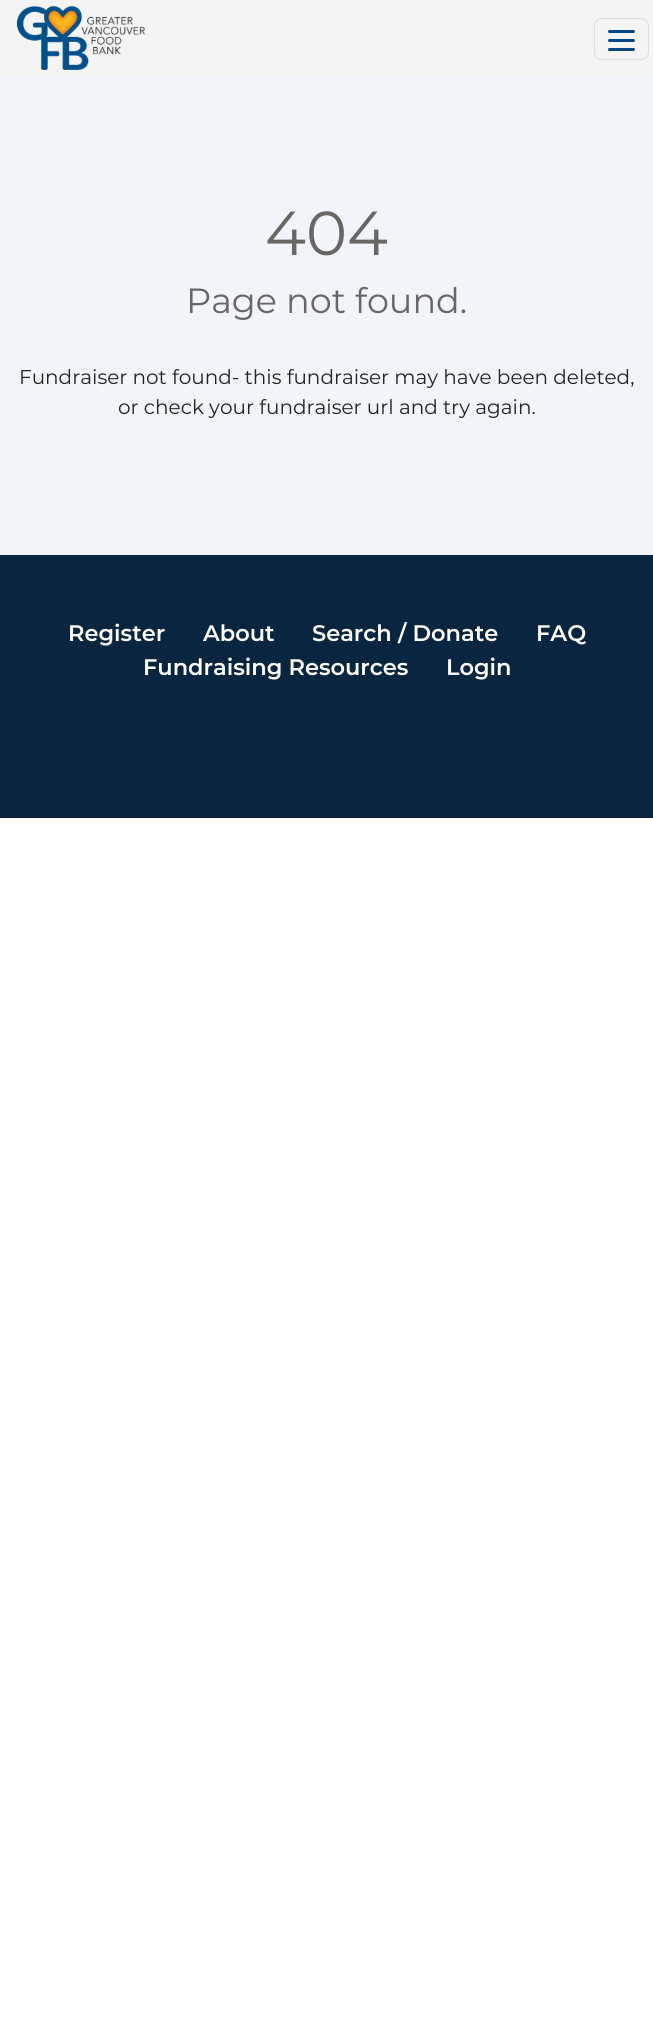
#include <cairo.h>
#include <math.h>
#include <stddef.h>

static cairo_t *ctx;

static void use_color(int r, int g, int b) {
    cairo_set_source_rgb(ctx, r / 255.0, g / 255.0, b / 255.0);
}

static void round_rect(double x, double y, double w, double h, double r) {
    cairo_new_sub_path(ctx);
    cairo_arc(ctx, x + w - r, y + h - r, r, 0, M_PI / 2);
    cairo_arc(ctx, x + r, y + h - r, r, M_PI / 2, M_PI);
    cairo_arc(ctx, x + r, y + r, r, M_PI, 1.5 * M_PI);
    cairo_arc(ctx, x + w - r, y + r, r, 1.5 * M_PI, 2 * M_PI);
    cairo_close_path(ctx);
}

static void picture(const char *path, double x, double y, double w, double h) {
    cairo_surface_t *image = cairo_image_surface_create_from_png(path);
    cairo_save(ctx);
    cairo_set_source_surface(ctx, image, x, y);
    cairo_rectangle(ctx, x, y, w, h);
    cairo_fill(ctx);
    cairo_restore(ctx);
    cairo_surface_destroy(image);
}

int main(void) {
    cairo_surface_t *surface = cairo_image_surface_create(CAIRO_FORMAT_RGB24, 653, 2029);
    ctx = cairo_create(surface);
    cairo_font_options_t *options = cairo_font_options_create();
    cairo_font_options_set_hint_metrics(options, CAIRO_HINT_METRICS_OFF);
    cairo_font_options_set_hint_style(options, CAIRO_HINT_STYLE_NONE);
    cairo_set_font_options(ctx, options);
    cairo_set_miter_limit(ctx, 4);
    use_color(255, 255, 255);
    cairo_paint(ctx);
    use_color(244, 244, 244);
    cairo_rectangle(ctx, 0, 0, 653, 76);
    cairo_fill(ctx);
    picture("img1.png", 16, 5, 129, 65);
    round_rect(594.5, 18.5, 54, 41, 7.5);
    use_color(220, 220, 220);
    cairo_set_line_width(ctx, 1);
    cairo_stroke(ctx);
    use_color(0, 71, 128);
    round_rect(608, 30, 27, 3, 1.5);
    cairo_fill(ctx);
    round_rect(608, 39, 27, 3, 1.5);
    cairo_fill(ctx);
    round_rect(608, 48, 27, 3, 1.5);
    cairo_fill(ctx);
    use_color(241, 244, 248);
    cairo_rectangle(ctx, 0, 76, 653, 479);
    cairo_fill(ctx);
    cairo_select_font_face(ctx, "Montserrat", CAIRO_FONT_SLANT_NORMAL, CAIRO_FONT_WEIGHT_NORMAL);
    cairo_set_font_size(ctx, 62);
    use_color(104, 103, 102);
    cairo_move_to(ctx, 265, 255);
    cairo_show_text(ctx, "404");
    cairo_set_font_size(ctx, 35);
    cairo_move_to(ctx, 186, 313);
    cairo_show_text(ctx, "Page not found.");
    cairo_set_font_size(ctx, 20);
    use_color(33, 37, 41);
    cairo_move_to(ctx, 19, 384);
    cairo_show_text(ctx, "Fundraiser not found- this fundraiser may have been deleted,");
    cairo_move_to(ctx, 118, 414);
    cairo_show_text(ctx, "or check your fundraiser url and try again.");
    use_color(10, 37, 64);
    cairo_rectangle(ctx, 0, 555, 653, 263);
    cairo_fill(ctx);
    cairo_select_font_face(ctx, "Montserrat SemiBold", CAIRO_FONT_SLANT_NORMAL, CAIRO_FONT_WEIGHT_NORMAL);
    cairo_set_font_size(ctx, 22.5);
    use_color(255, 255, 255);
    cairo_move_to(ctx, 68, 641);
    cairo_show_text(ctx, "Register");
    cairo_move_to(ctx, 203, 641);
    cairo_show_text(ctx, "About");
    cairo_move_to(ctx, 312, 641);
    cairo_show_text(ctx, "Search / Donate");
    cairo_move_to(ctx, 536, 641);
    cairo_show_text(ctx, "FAQ");
    cairo_move_to(ctx, 143, 675);
    cairo_show_text(ctx, "Fundraising Resources");
    cairo_move_to(ctx, 446, 675);
    cairo_show_text(ctx, "Login");
    cairo_surface_write_to_png(surface, "result.png");
    cairo_font_options_destroy(options);
    cairo_destroy(ctx);
    cairo_surface_destroy(surface);
    return 0;
}
